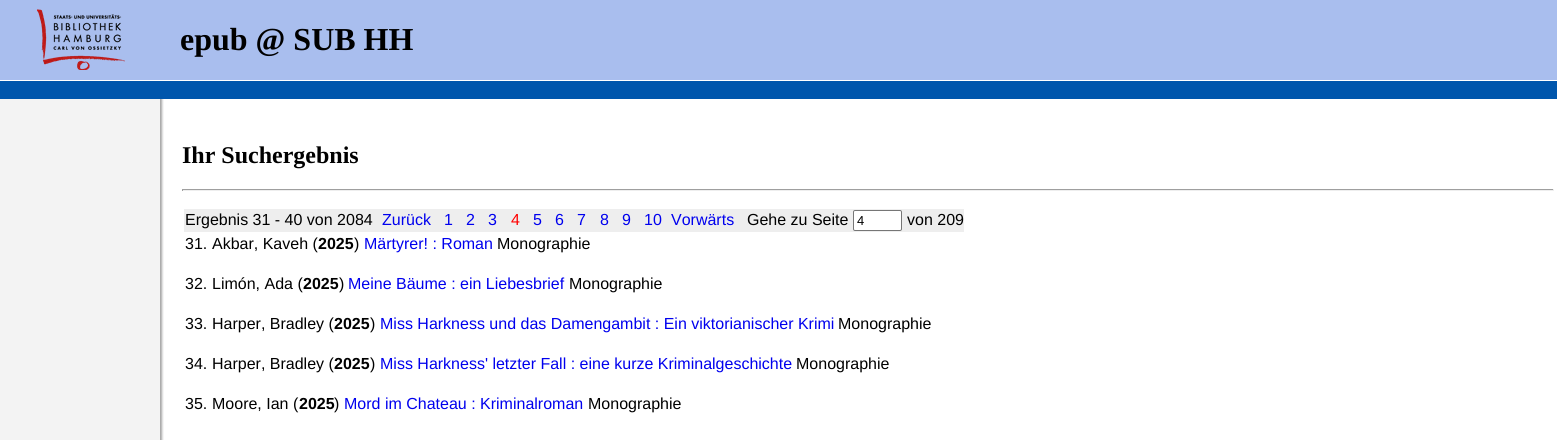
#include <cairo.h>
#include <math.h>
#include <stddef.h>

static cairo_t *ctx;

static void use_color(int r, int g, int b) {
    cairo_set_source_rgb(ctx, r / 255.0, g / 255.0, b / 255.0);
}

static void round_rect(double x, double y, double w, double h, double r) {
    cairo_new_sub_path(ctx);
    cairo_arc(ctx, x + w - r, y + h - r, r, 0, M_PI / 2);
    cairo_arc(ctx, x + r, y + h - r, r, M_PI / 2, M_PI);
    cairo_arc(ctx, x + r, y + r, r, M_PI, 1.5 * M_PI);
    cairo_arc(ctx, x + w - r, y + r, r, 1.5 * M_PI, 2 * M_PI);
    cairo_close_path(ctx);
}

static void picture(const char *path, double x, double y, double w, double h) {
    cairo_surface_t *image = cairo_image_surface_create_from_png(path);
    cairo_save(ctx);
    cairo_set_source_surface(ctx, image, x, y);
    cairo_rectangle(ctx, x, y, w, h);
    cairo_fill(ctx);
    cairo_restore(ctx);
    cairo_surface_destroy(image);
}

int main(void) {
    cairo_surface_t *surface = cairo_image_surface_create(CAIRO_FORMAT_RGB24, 1557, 440);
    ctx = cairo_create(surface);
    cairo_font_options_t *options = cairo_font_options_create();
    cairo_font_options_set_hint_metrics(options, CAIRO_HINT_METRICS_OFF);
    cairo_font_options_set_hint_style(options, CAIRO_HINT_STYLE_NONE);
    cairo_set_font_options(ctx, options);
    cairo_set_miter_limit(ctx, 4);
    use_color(255, 255, 255);
    cairo_paint(ctx);
    picture("img1.png", 0, 99, 164, 341);
    use_color(169, 190, 238);
    cairo_rectangle(ctx, 0, 0, 1557, 80);
    cairo_fill(ctx);
    picture("img2.png", 37, 9, 88, 61);
    cairo_select_font_face(ctx, "Liberation Serif", CAIRO_FONT_SLANT_NORMAL, CAIRO_FONT_WEIGHT_BOLD);
    cairo_set_font_size(ctx, 32);
    use_color(0, 0, 0);
    cairo_move_to(ctx, 180, 50);
    cairo_show_text(ctx, "epub @ SUB HH");
    use_color(0, 86, 172);
    cairo_rectangle(ctx, 0, 81, 1557, 18);
    cairo_fill(ctx);
    cairo_set_font_size(ctx, 24);
    use_color(0, 0, 0);
    cairo_move_to(ctx, 182, 163);
    cairo_show_text(ctx, "Ihr Suchergebnis");
    use_color(159, 159, 159);
    cairo_rectangle(ctx, 182, 189, 1372, 1);
    cairo_fill(ctx);
    use_color(238, 238, 238);
    cairo_rectangle(ctx, 1553, 189, 1, 2);
    cairo_fill(ctx);
    cairo_rectangle(ctx, 182, 190, 1372, 1);
    cairo_fill(ctx);
    use_color(159, 159, 159);
    cairo_rectangle(ctx, 182, 189, 1, 2);
    cairo_fill(ctx);
    use_color(238, 238, 238);
    cairo_rectangle(ctx, 184, 209, 780, 23);
    cairo_fill(ctx);
    cairo_select_font_face(ctx, "Liberation Sans", CAIRO_FONT_SLANT_NORMAL, CAIRO_FONT_WEIGHT_NORMAL);
    cairo_set_font_size(ctx, 16);
    use_color(0, 0, 0);
    cairo_move_to(ctx, 185, 225);
    cairo_show_text(ctx, "Ergebnis 31 - 40 von 2084");
    use_color(0, 0, 238);
    cairo_move_to(ctx, 382, 225);
    cairo_show_text(ctx, "Zurück");
    cairo_move_to(ctx, 444, 225);
    cairo_show_text(ctx, "1");
    cairo_move_to(ctx, 466, 225);
    cairo_show_text(ctx, "2");
    cairo_move_to(ctx, 488, 225);
    cairo_show_text(ctx, "3");
    use_color(255, 0, 0);
    cairo_move_to(ctx, 511, 225);
    cairo_show_text(ctx, "4");
    use_color(0, 0, 238);
    cairo_move_to(ctx, 533, 225);
    cairo_show_text(ctx, "5");
    cairo_move_to(ctx, 555, 225);
    cairo_show_text(ctx, "6");
    cairo_move_to(ctx, 577, 225);
    cairo_show_text(ctx, "7");
    cairo_move_to(ctx, 600, 225);
    cairo_show_text(ctx, "8");
    cairo_move_to(ctx, 622, 225);
    cairo_show_text(ctx, "9");
    cairo_move_to(ctx, 644, 225);
    cairo_show_text(ctx, "10");
    cairo_move_to(ctx, 671, 225);
    cairo_show_text(ctx, "Vorwärts");
    use_color(0, 0, 0);
    cairo_move_to(ctx, 747, 225);
    cairo_show_text(ctx, "Gehe zu Seite");
    use_color(255, 255, 255);
    round_rect(853.5, 210.5, 48, 20, 1.5);
    cairo_fill_preserve(ctx);
    use_color(118, 118, 118);
    cairo_set_line_width(ctx, 1);
    cairo_stroke(ctx);
    cairo_set_font_size(ctx, 13);
    use_color(0, 0, 0);
    cairo_move_to(ctx, 857, 225);
    cairo_show_text(ctx, "4");
    cairo_set_font_size(ctx, 16);
    cairo_move_to(ctx, 907, 225);
    cairo_show_text(ctx, "von 209");
    cairo_move_to(ctx, 185, 249);
    cairo_show_text(ctx, "31.");
    cairo_move_to(ctx, 212, 249);
    cairo_show_text(ctx, "Akbar, Kaveh (");
    cairo_select_font_face(ctx, "Liberation Sans", CAIRO_FONT_SLANT_NORMAL, CAIRO_FONT_WEIGHT_BOLD);
    cairo_move_to(ctx, 318, 249);
    cairo_show_text(ctx, "2025");
    cairo_select_font_face(ctx, "Liberation Sans", CAIRO_FONT_SLANT_NORMAL, CAIRO_FONT_WEIGHT_NORMAL);
    cairo_move_to(ctx, 354, 249);
    cairo_show_text(ctx, ")");
    use_color(0, 0, 238);
    cairo_move_to(ctx, 364, 249);
    cairo_show_text(ctx, "Märtyrer! : Roman");
    use_color(0, 0, 0);
    cairo_move_to(ctx, 497, 249);
    cairo_show_text(ctx, "Monographie");
    cairo_move_to(ctx, 185, 289);
    cairo_show_text(ctx, "32.");
    cairo_move_to(ctx, 212, 289);
    cairo_show_text(ctx, "Limón, Ada (");
    cairo_select_font_face(ctx, "Liberation Sans", CAIRO_FONT_SLANT_NORMAL, CAIRO_FONT_WEIGHT_BOLD);
    cairo_move_to(ctx, 303, 289);
    cairo_show_text(ctx, "2025");
    cairo_select_font_face(ctx, "Liberation Sans", CAIRO_FONT_SLANT_NORMAL, CAIRO_FONT_WEIGHT_NORMAL);
    cairo_move_to(ctx, 339, 289);
    cairo_show_text(ctx, ")");
    use_color(0, 0, 238);
    cairo_move_to(ctx, 348, 289);
    cairo_show_text(ctx, "Meine Bäume : ein Liebesbrief");
    use_color(0, 0, 0);
    cairo_move_to(ctx, 569, 289);
    cairo_show_text(ctx, "Monographie");
    cairo_move_to(ctx, 185, 329);
    cairo_show_text(ctx, "33.");
    cairo_move_to(ctx, 212, 329);
    cairo_show_text(ctx, "Harper, Bradley (");
    cairo_select_font_face(ctx, "Liberation Sans", CAIRO_FONT_SLANT_NORMAL, CAIRO_FONT_WEIGHT_BOLD);
    cairo_move_to(ctx, 334, 329);
    cairo_show_text(ctx, "2025");
    cairo_select_font_face(ctx, "Liberation Sans", CAIRO_FONT_SLANT_NORMAL, CAIRO_FONT_WEIGHT_NORMAL);
    cairo_move_to(ctx, 370, 329);
    cairo_show_text(ctx, ")");
    use_color(0, 0, 238);
    cairo_move_to(ctx, 380, 329);
    cairo_show_text(ctx, "Miss Harkness und das Damengambit : Ein viktorianischer Krimi");
    use_color(0, 0, 0);
    cairo_move_to(ctx, 838, 329);
    cairo_show_text(ctx, "Monographie");
    cairo_move_to(ctx, 185, 369);
    cairo_show_text(ctx, "34.");
    cairo_move_to(ctx, 212, 369);
    cairo_show_text(ctx, "Harper, Bradley (");
    cairo_select_font_face(ctx, "Liberation Sans", CAIRO_FONT_SLANT_NORMAL, CAIRO_FONT_WEIGHT_BOLD);
    cairo_move_to(ctx, 334, 369);
    cairo_show_text(ctx, "2025");
    cairo_select_font_face(ctx, "Liberation Sans", CAIRO_FONT_SLANT_NORMAL, CAIRO_FONT_WEIGHT_NORMAL);
    cairo_move_to(ctx, 370, 369);
    cairo_show_text(ctx, ")");
    use_color(0, 0, 238);
    cairo_move_to(ctx, 380, 369);
    cairo_show_text(ctx, "Miss Harkness' letzter Fall : eine kurze Kriminalgeschichte");
    use_color(0, 0, 0);
    cairo_move_to(ctx, 796, 369);
    cairo_show_text(ctx, "Monographie");
    cairo_move_to(ctx, 185, 409);
    cairo_show_text(ctx, "35.");
    cairo_move_to(ctx, 212, 409);
    cairo_show_text(ctx, "Moore, Ian (");
    cairo_select_font_face(ctx, "Liberation Sans", CAIRO_FONT_SLANT_NORMAL, CAIRO_FONT_WEIGHT_BOLD);
    cairo_move_to(ctx, 299, 409);
    cairo_show_text(ctx, "2025");
    cairo_select_font_face(ctx, "Liberation Sans", CAIRO_FONT_SLANT_NORMAL, CAIRO_FONT_WEIGHT_NORMAL);
    cairo_move_to(ctx, 334, 409);
    cairo_show_text(ctx, ")");
    use_color(0, 0, 238);
    cairo_move_to(ctx, 344, 409);
    cairo_show_text(ctx, "Mord im Chateau : Kriminalroman");
    use_color(0, 0, 0);
    cairo_move_to(ctx, 588, 409);
    cairo_show_text(ctx, "Monographie");
    cairo_surface_write_to_png(surface, "result.png");
    cairo_font_options_destroy(options);
    cairo_destroy(ctx);
    cairo_surface_destroy(surface);
    return 0;
}
